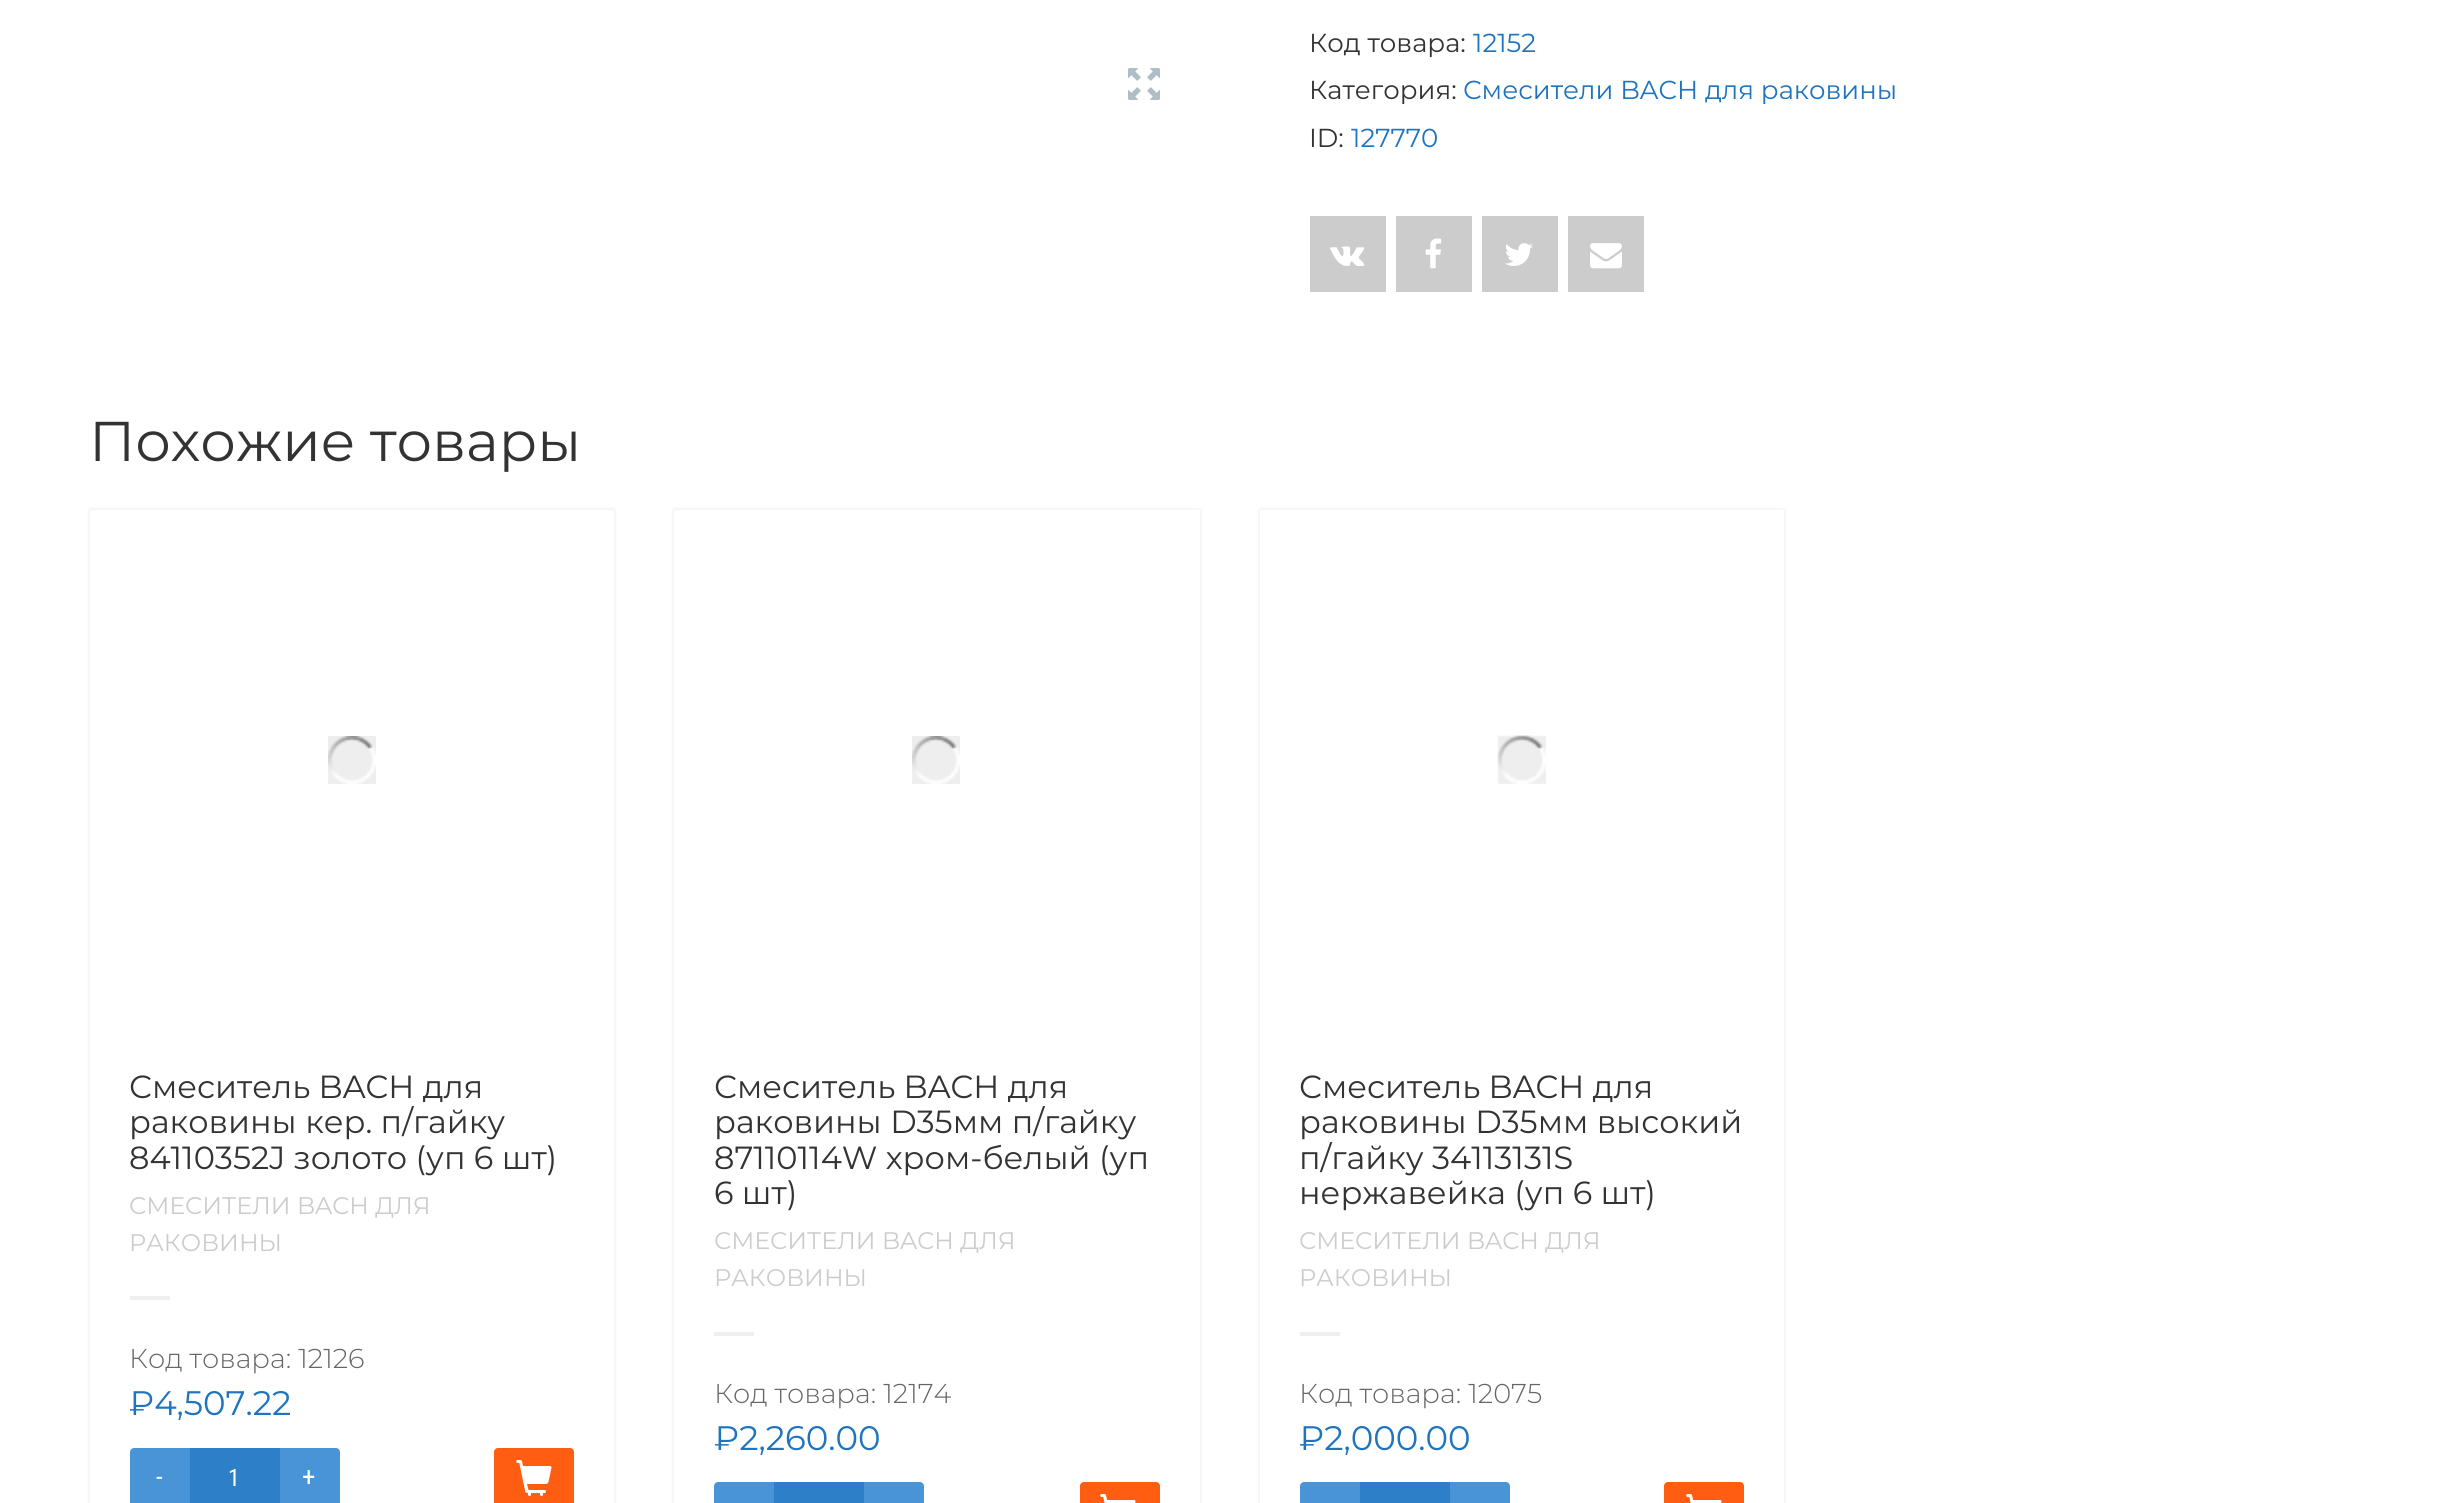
#include <cairo.h>
#include <math.h>
#include <stddef.h>

static cairo_t *ctx;

static void use_color(int r, int g, int b) {
    cairo_set_source_rgb(ctx, r / 255.0, g / 255.0, b / 255.0);
}

static void round_rect(double x, double y, double w, double h, double r) {
    cairo_new_sub_path(ctx);
    cairo_arc(ctx, x + w - r, y + h - r, r, 0, M_PI / 2);
    cairo_arc(ctx, x + r, y + h - r, r, M_PI / 2, M_PI);
    cairo_arc(ctx, x + r, y + r, r, M_PI, 1.5 * M_PI);
    cairo_arc(ctx, x + w - r, y + r, r, 1.5 * M_PI, 2 * M_PI);
    cairo_close_path(ctx);
}

static void shadow(double x, double y, double w, double h, double r, double blur, double alpha) {
    cairo_push_group_with_content(ctx, CAIRO_CONTENT_ALPHA);
    cairo_set_operator(ctx, CAIRO_OPERATOR_SOURCE);
    for (int i = 15; i >= -15 && fmin(w, h) + blur * i / 3 > 0; i -= 2) {
        double e = blur * i / 6;
        cairo_set_source_rgba(ctx, 0, 0, 0, alpha * erfc((i - 1) / 8.5) / 2);
        round_rect(x - e, y - e, w + 2 * e, h + 2 * e, fmax(0, fmin(r + e + blur * .6, fmin(w, h) / 2 + e)));
        cairo_fill(ctx);
    }
    cairo_pattern_t *soft = cairo_pop_group(ctx);
    cairo_mask(ctx, soft);
    cairo_pattern_destroy(soft);
}

static void picture(const char *path, double x, double y, double w, double h) {
    cairo_surface_t *image = cairo_image_surface_create_from_png(path);
    cairo_save(ctx);
    cairo_set_source_surface(ctx, image, x, y);
    cairo_rectangle(ctx, x, y, w, h);
    cairo_fill(ctx);
    cairo_restore(ctx);
    cairo_surface_destroy(image);
}

int main(void) {
    cairo_surface_t *surface = cairo_image_surface_create(CAIRO_FORMAT_RGB24, 2457, 1503);
    ctx = cairo_create(surface);
    cairo_font_options_t *options = cairo_font_options_create();
    cairo_font_options_set_hint_metrics(options, CAIRO_HINT_METRICS_OFF);
    cairo_font_options_set_hint_style(options, CAIRO_HINT_STYLE_NONE);
    cairo_set_font_options(ctx, options);
    cairo_set_miter_limit(ctx, 4);
    use_color(255, 255, 255);
    cairo_paint(ctx);
    picture("img1.png", 1128, 68, 32, 32);
    cairo_select_font_face(ctx, "Montserrat", CAIRO_FONT_SLANT_NORMAL, CAIRO_FONT_WEIGHT_NORMAL);
    cairo_set_font_size(ctx, 26);
    use_color(51, 51, 51);
    cairo_move_to(ctx, 1309, 52);
    cairo_show_text(ctx, "Код товара:");
    use_color(30, 116, 191);
    cairo_move_to(ctx, 1473, 52);
    cairo_show_text(ctx, "12152");
    use_color(51, 51, 51);
    cairo_move_to(ctx, 1309, 99);
    cairo_show_text(ctx, "Категория:");
    use_color(30, 116, 191);
    cairo_move_to(ctx, 1463, 99);
    cairo_show_text(ctx, "Смесители BACH для раковины");
    use_color(51, 51, 51);
    cairo_move_to(ctx, 1309, 147);
    cairo_show_text(ctx, "ID:");
    use_color(30, 116, 191);
    cairo_move_to(ctx, 1351, 147);
    cairo_show_text(ctx, "127770");
    use_color(204, 204, 204);
    cairo_rectangle(ctx, 1310, 216, 76, 76);
    cairo_fill(ctx);
    picture("img2.png", 1330, 246, 35, 20);
    cairo_rectangle(ctx, 1396, 216, 76, 76);
    cairo_fill(ctx);
    picture("img3.png", 1425, 238, 17, 31);
    cairo_rectangle(ctx, 1482, 216, 76, 76);
    cairo_fill(ctx);
    picture("img4.png", 1505, 243, 28, 23);
    cairo_rectangle(ctx, 1568, 216, 76, 76);
    cairo_fill(ctx);
    picture("img5.png", 1590, 243, 32, 26);
    cairo_set_font_size(ctx, 56);
    use_color(51, 51, 51);
    cairo_move_to(ctx, 89, 461);
    cairo_show_text(ctx, "Похожие товары");
    cairo_save(ctx);
    cairo_set_fill_rule(ctx, CAIRO_FILL_RULE_EVEN_ODD);
    cairo_new_path(ctx);
    cairo_move_to(ctx, 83, 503);
    cairo_line_to(ctx, 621, 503);
    cairo_line_to(ctx, 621, 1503);
    cairo_line_to(ctx, 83, 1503);
    cairo_close_path(ctx);
    cairo_move_to(ctx, 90, 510);
    cairo_line_to(ctx, 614, 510);
    cairo_line_to(ctx, 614, 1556);
    cairo_line_to(ctx, 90, 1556);
    cairo_close_path(ctx);
    cairo_clip(ctx);
    use_color(204, 204, 204);
    shadow(90, 510, 524, 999, 0, 2, 0.5);
    cairo_restore(ctx);
    picture("img6.png", 328, 736, 48, 48);
    cairo_set_font_size(ctx, 32);
    cairo_move_to(ctx, 129, 1098);
    cairo_show_text(ctx, "Смеситель BACH для");
    cairo_move_to(ctx, 129, 1133);
    cairo_show_text(ctx, "раковины кер. п/гайку");
    cairo_move_to(ctx, 129, 1169);
    cairo_show_text(ctx, "84110352J золото (уп 6 шт)");
    cairo_set_font_size(ctx, 24);
    use_color(204, 204, 204);
    cairo_move_to(ctx, 129, 1214);
    cairo_show_text(ctx, "СМЕСИТЕЛИ BACH ДЛЯ");
    cairo_move_to(ctx, 129, 1251);
    cairo_show_text(ctx, "РАКОВИНЫ");
    use_color(238, 238, 238);
    cairo_rectangle(ctx, 130, 1296, 40, 4);
    cairo_fill(ctx);
    cairo_select_font_face(ctx, "Montserrat Light", CAIRO_FONT_SLANT_NORMAL, CAIRO_FONT_WEIGHT_NORMAL);
    cairo_set_font_size(ctx, 27.25);
    use_color(102, 102, 102);
    cairo_move_to(ctx, 129, 1368);
    cairo_show_text(ctx, "Код товара: 12126");
    cairo_select_font_face(ctx, "Montserrat", CAIRO_FONT_SLANT_NORMAL, CAIRO_FONT_WEIGHT_NORMAL);
    cairo_set_font_size(ctx, 34);
    use_color(30, 116, 191);
    cairo_move_to(ctx, 129, 1415);
    cairo_show_text(ctx, "₽4,507.22");
    use_color(73, 148, 214);
    cairo_new_path(ctx);
    cairo_move_to(ctx, 134, 1448);
    cairo_line_to(ctx, 190, 1448);
    cairo_line_to(ctx, 190, 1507);
    cairo_line_to(ctx, 134, 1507);
    cairo_curve_to(ctx, 132, 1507, 130, 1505, 130, 1503);
    cairo_line_to(ctx, 130, 1452);
    cairo_curve_to(ctx, 130, 1450, 132, 1448, 134, 1448);
    cairo_close_path(ctx);
    cairo_fill(ctx);
    cairo_select_font_face(ctx, "Roboto Condensed", CAIRO_FONT_SLANT_NORMAL, CAIRO_FONT_WEIGHT_NORMAL);
    cairo_set_font_size(ctx, 27);
    use_color(255, 255, 255);
    cairo_move_to(ctx, 156, 1486);
    cairo_show_text(ctx, "-");
    use_color(45, 127, 199);
    cairo_rectangle(ctx, 190, 1448, 90, 55);
    cairo_fill(ctx);
    cairo_set_font_size(ctx, 24);
    use_color(255, 255, 255);
    cairo_move_to(ctx, 228, 1486);
    cairo_show_text(ctx, "1");
    use_color(73, 148, 214);
    cairo_new_path(ctx);
    cairo_move_to(ctx, 280, 1448);
    cairo_line_to(ctx, 336, 1448);
    cairo_curve_to(ctx, 338, 1448, 340, 1450, 340, 1452);
    cairo_line_to(ctx, 340, 1503);
    cairo_curve_to(ctx, 340, 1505, 338, 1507, 336, 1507);
    cairo_line_to(ctx, 280, 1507);
    cairo_close_path(ctx);
    cairo_fill(ctx);
    cairo_set_font_size(ctx, 27);
    use_color(255, 255, 255);
    cairo_move_to(ctx, 302, 1486);
    cairo_show_text(ctx, "+");
    use_color(255, 94, 18);
    round_rect(494, 1448, 80, 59, 4);
    cairo_fill(ctx);
    picture("img7.png", 516, 1460, 36, 36);
    cairo_save(ctx);
    cairo_set_fill_rule(ctx, CAIRO_FILL_RULE_EVEN_ODD);
    cairo_new_path(ctx);
    cairo_move_to(ctx, 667, 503);
    cairo_line_to(ctx, 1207, 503);
    cairo_line_to(ctx, 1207, 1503);
    cairo_line_to(ctx, 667, 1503);
    cairo_close_path(ctx);
    cairo_move_to(ctx, 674, 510);
    cairo_line_to(ctx, 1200, 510);
    cairo_line_to(ctx, 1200, 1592);
    cairo_line_to(ctx, 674, 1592);
    cairo_close_path(ctx);
    cairo_clip(ctx);
    use_color(204, 204, 204);
    shadow(674, 510, 526, 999, 0, 2, 0.5);
    cairo_restore(ctx);
    picture("img6.png", 912, 736, 48, 48);
    cairo_select_font_face(ctx, "Montserrat", CAIRO_FONT_SLANT_NORMAL, CAIRO_FONT_WEIGHT_NORMAL);
    cairo_set_font_size(ctx, 32);
    use_color(51, 51, 51);
    cairo_move_to(ctx, 714, 1098);
    cairo_show_text(ctx, "Смеситель BACH для");
    cairo_move_to(ctx, 714, 1133);
    cairo_show_text(ctx, "раковины D35мм п/гайку");
    cairo_move_to(ctx, 714, 1169);
    cairo_show_text(ctx, "87110114W хром-белый (уп");
    cairo_move_to(ctx, 714, 1204);
    cairo_show_text(ctx, "6 шт)");
    cairo_set_font_size(ctx, 24);
    use_color(204, 204, 204);
    cairo_move_to(ctx, 714, 1249);
    cairo_show_text(ctx, "СМЕСИТЕЛИ BACH ДЛЯ");
    cairo_move_to(ctx, 714, 1286);
    cairo_show_text(ctx, "РАКОВИНЫ");
    use_color(238, 238, 238);
    cairo_rectangle(ctx, 714, 1332, 40, 4);
    cairo_fill(ctx);
    cairo_select_font_face(ctx, "Montserrat Light", CAIRO_FONT_SLANT_NORMAL, CAIRO_FONT_WEIGHT_NORMAL);
    cairo_set_font_size(ctx, 27.25);
    use_color(102, 102, 102);
    cairo_move_to(ctx, 714, 1403);
    cairo_show_text(ctx, "Код товара: 12174");
    cairo_select_font_face(ctx, "Montserrat", CAIRO_FONT_SLANT_NORMAL, CAIRO_FONT_WEIGHT_NORMAL);
    cairo_set_font_size(ctx, 34);
    use_color(30, 116, 191);
    cairo_move_to(ctx, 714, 1450);
    cairo_show_text(ctx, "₽2,260.00");
    use_color(73, 148, 214);
    cairo_new_path(ctx);
    cairo_move_to(ctx, 718, 1482);
    cairo_line_to(ctx, 774, 1482);
    cairo_line_to(ctx, 774, 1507);
    cairo_line_to(ctx, 718, 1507);
    cairo_curve_to(ctx, 716, 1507, 714, 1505, 714, 1503);
    cairo_line_to(ctx, 714, 1486);
    cairo_curve_to(ctx, 714, 1484, 716, 1482, 718, 1482);
    cairo_close_path(ctx);
    cairo_fill(ctx);
    use_color(45, 127, 199);
    cairo_rectangle(ctx, 774, 1482, 90, 21);
    cairo_fill(ctx);
    use_color(73, 148, 214);
    cairo_new_path(ctx);
    cairo_move_to(ctx, 864, 1482);
    cairo_line_to(ctx, 920, 1482);
    cairo_curve_to(ctx, 922, 1482, 924, 1484, 924, 1486);
    cairo_line_to(ctx, 924, 1503);
    cairo_curve_to(ctx, 924, 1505, 922, 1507, 920, 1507);
    cairo_line_to(ctx, 864, 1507);
    cairo_close_path(ctx);
    cairo_fill(ctx);
    use_color(255, 94, 18);
    round_rect(1080, 1482, 80, 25, 4);
    cairo_fill(ctx);
    picture("img8.png", 1100, 1494, 36, 9);
    cairo_save(ctx);
    cairo_set_fill_rule(ctx, CAIRO_FILL_RULE_EVEN_ODD);
    cairo_new_path(ctx);
    cairo_move_to(ctx, 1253, 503);
    cairo_line_to(ctx, 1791, 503);
    cairo_line_to(ctx, 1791, 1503);
    cairo_line_to(ctx, 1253, 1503);
    cairo_close_path(ctx);
    cairo_move_to(ctx, 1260, 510);
    cairo_line_to(ctx, 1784, 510);
    cairo_line_to(ctx, 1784, 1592);
    cairo_line_to(ctx, 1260, 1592);
    cairo_close_path(ctx);
    cairo_clip(ctx);
    use_color(204, 204, 204);
    shadow(1260, 510, 524, 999, 0, 2, 0.5);
    cairo_restore(ctx);
    picture("img9.png", 1497, 735, 49, 49);
    cairo_set_font_size(ctx, 32);
    use_color(51, 51, 51);
    cairo_move_to(ctx, 1299, 1098);
    cairo_show_text(ctx, "Смеситель BACH для");
    cairo_move_to(ctx, 1299, 1133);
    cairo_show_text(ctx, "раковины D35мм высокий");
    cairo_move_to(ctx, 1299, 1169);
    cairo_show_text(ctx, "п/гайку 34113131S");
    cairo_move_to(ctx, 1299, 1204);
    cairo_show_text(ctx, "нержавейка (уп 6 шт)");
    cairo_set_font_size(ctx, 24);
    use_color(204, 204, 204);
    cairo_move_to(ctx, 1299, 1249);
    cairo_show_text(ctx, "СМЕСИТЕЛИ BACH ДЛЯ");
    cairo_move_to(ctx, 1299, 1286);
    cairo_show_text(ctx, "РАКОВИНЫ");
    use_color(238, 238, 238);
    cairo_rectangle(ctx, 1300, 1332, 40, 4);
    cairo_fill(ctx);
    cairo_select_font_face(ctx, "Montserrat Light", CAIRO_FONT_SLANT_NORMAL, CAIRO_FONT_WEIGHT_NORMAL);
    cairo_set_font_size(ctx, 27.25);
    use_color(102, 102, 102);
    cairo_move_to(ctx, 1299, 1403);
    cairo_show_text(ctx, "Код товара: 12075");
    cairo_select_font_face(ctx, "Montserrat", CAIRO_FONT_SLANT_NORMAL, CAIRO_FONT_WEIGHT_NORMAL);
    cairo_set_font_size(ctx, 34);
    use_color(30, 116, 191);
    cairo_move_to(ctx, 1299, 1450);
    cairo_show_text(ctx, "₽2,000.00");
    use_color(73, 148, 214);
    cairo_new_path(ctx);
    cairo_move_to(ctx, 1304, 1482);
    cairo_line_to(ctx, 1360, 1482);
    cairo_line_to(ctx, 1360, 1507);
    cairo_line_to(ctx, 1304, 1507);
    cairo_curve_to(ctx, 1302, 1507, 1300, 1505, 1300, 1503);
    cairo_line_to(ctx, 1300, 1486);
    cairo_curve_to(ctx, 1300, 1484, 1302, 1482, 1304, 1482);
    cairo_close_path(ctx);
    cairo_fill(ctx);
    use_color(45, 127, 199);
    cairo_rectangle(ctx, 1360, 1482, 90, 21);
    cairo_fill(ctx);
    use_color(73, 148, 214);
    cairo_new_path(ctx);
    cairo_move_to(ctx, 1450, 1482);
    cairo_line_to(ctx, 1506, 1482);
    cairo_curve_to(ctx, 1508, 1482, 1510, 1484, 1510, 1486);
    cairo_line_to(ctx, 1510, 1503);
    cairo_curve_to(ctx, 1510, 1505, 1508, 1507, 1506, 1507);
    cairo_line_to(ctx, 1450, 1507);
    cairo_close_path(ctx);
    cairo_fill(ctx);
    use_color(255, 94, 18);
    round_rect(1664, 1482, 80, 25, 4);
    cairo_fill(ctx);
    picture("img8.png", 1686, 1494, 36, 9);
    cairo_surface_write_to_png(surface, "result.png");
    cairo_font_options_destroy(options);
    cairo_destroy(ctx);
    cairo_surface_destroy(surface);
    return 0;
}
